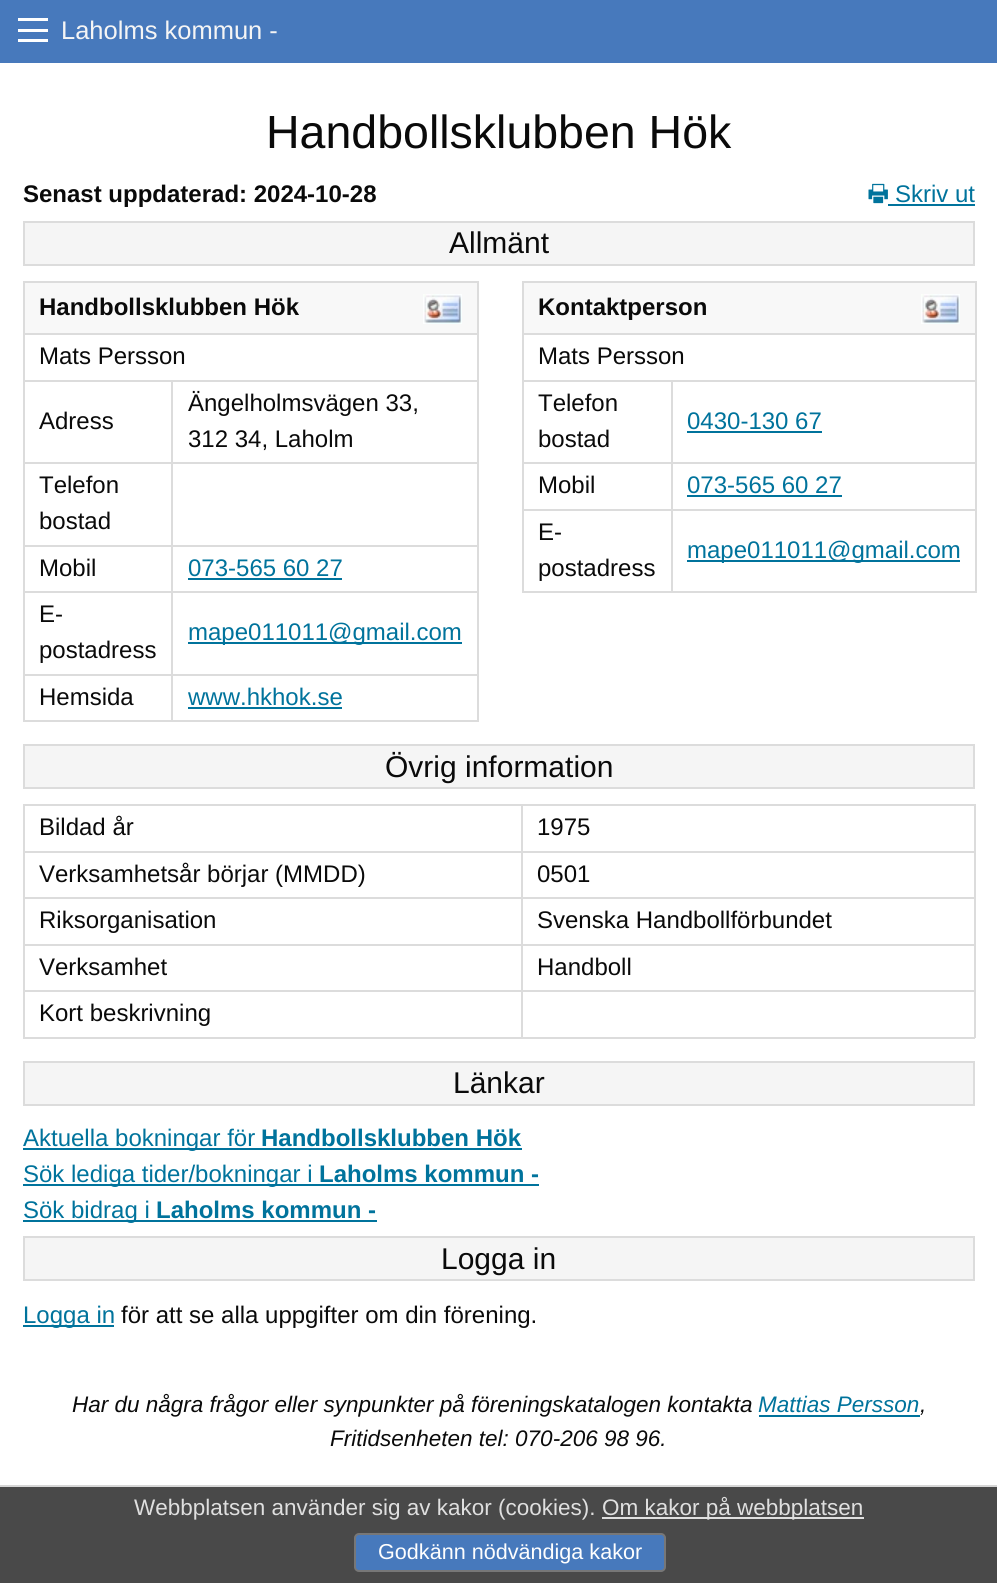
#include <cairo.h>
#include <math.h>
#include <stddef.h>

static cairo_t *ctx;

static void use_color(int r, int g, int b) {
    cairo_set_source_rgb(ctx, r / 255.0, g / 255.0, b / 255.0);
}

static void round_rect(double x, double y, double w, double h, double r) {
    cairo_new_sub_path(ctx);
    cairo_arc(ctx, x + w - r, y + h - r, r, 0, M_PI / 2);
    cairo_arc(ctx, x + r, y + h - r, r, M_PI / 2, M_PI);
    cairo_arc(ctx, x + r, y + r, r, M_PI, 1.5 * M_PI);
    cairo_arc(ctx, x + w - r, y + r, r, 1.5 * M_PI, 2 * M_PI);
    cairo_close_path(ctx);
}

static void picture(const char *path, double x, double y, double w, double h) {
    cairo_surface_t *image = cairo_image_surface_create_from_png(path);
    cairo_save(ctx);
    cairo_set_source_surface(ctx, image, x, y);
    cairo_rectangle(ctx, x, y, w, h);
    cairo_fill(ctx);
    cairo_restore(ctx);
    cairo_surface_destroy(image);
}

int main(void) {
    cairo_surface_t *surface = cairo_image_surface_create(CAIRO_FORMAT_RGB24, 997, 1583);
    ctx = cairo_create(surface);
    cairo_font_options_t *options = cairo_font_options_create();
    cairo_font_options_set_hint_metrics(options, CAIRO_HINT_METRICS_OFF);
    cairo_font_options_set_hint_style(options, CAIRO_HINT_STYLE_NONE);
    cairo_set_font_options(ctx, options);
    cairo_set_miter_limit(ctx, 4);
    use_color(255, 255, 255);
    cairo_paint(ctx);
    use_color(71, 121, 188);
    cairo_rectangle(ctx, 0, 0, 997, 63);
    cairo_fill(ctx);
    use_color(255, 255, 255);
    cairo_rectangle(ctx, 18, 39, 30, 3);
    cairo_fill(ctx);
    cairo_rectangle(ctx, 18, 29, 30, 3);
    cairo_fill(ctx);
    cairo_rectangle(ctx, 18, 18, 30, 3);
    cairo_fill(ctx);
    cairo_select_font_face(ctx, "Liberation Sans", CAIRO_FONT_SLANT_NORMAL, CAIRO_FONT_WEIGHT_NORMAL);
    cairo_set_font_size(ctx, 25.5);
    use_color(245, 245, 245);
    cairo_move_to(ctx, 61, 39);
    cairo_show_text(ctx, "Laholms kommun -");
    cairo_set_font_size(ctx, 46.5);
    use_color(10, 10, 10);
    cairo_move_to(ctx, 266, 148);
    cairo_show_text(ctx, "Handbollsklubben Hök");
    cairo_select_font_face(ctx, "Liberation Sans", CAIRO_FONT_SLANT_NORMAL, CAIRO_FONT_WEIGHT_BOLD);
    cairo_set_font_size(ctx, 24);
    cairo_move_to(ctx, 23, 202);
    cairo_show_text(ctx, "Senast uppdaterad: 2024-10-28");
    picture("img1.png", 868, 183, 20, 21);
    cairo_select_font_face(ctx, "Liberation Sans", CAIRO_FONT_SLANT_NORMAL, CAIRO_FONT_WEIGHT_NORMAL);
    use_color(0, 115, 156);
    cairo_move_to(ctx, 895, 202);
    cairo_show_text(ctx, "Skriv ut");
    cairo_rectangle(ctx, 888, 204, 87, 2);
    cairo_fill(ctx);
    use_color(245, 245, 245);
    cairo_rectangle(ctx, 24, 222, 950, 43);
    cairo_fill_preserve(ctx);
    use_color(220, 220, 220);
    cairo_stroke(ctx);
    cairo_set_font_size(ctx, 30);
    use_color(10, 10, 10);
    cairo_move_to(ctx, 449, 253);
    cairo_show_text(ctx, "Allmänt");
    use_color(248, 248, 248);
    cairo_rectangle(ctx, 25, 283, 452, 50);
    cairo_fill(ctx);
    use_color(220, 220, 220);
    cairo_rectangle(ctx, 23, 281, 456, 2);
    cairo_fill(ctx);
    cairo_rectangle(ctx, 23, 333, 456, 2);
    cairo_fill(ctx);
    cairo_rectangle(ctx, 23, 380, 456, 2);
    cairo_fill(ctx);
    cairo_rectangle(ctx, 23, 462, 456, 2);
    cairo_fill(ctx);
    cairo_rectangle(ctx, 23, 545, 456, 2);
    cairo_fill(ctx);
    cairo_rectangle(ctx, 23, 591, 456, 2);
    cairo_fill(ctx);
    cairo_rectangle(ctx, 23, 674, 456, 2);
    cairo_fill(ctx);
    cairo_rectangle(ctx, 23, 720, 456, 2);
    cairo_fill(ctx);
    cairo_rectangle(ctx, 477, 380, 2, 342);
    cairo_fill(ctx);
    cairo_rectangle(ctx, 477, 333, 2, 48);
    cairo_fill(ctx);
    cairo_rectangle(ctx, 477, 281, 2, 54);
    cairo_fill(ctx);
    cairo_rectangle(ctx, 23, 380, 2, 342);
    cairo_fill(ctx);
    cairo_rectangle(ctx, 23, 333, 2, 48);
    cairo_fill(ctx);
    cairo_rectangle(ctx, 23, 281, 2, 54);
    cairo_fill(ctx);
    cairo_select_font_face(ctx, "Liberation Sans", CAIRO_FONT_SLANT_NORMAL, CAIRO_FONT_WEIGHT_BOLD);
    cairo_set_font_size(ctx, 24);
    use_color(10, 10, 10);
    cairo_move_to(ctx, 39, 315);
    cairo_show_text(ctx, "Handbollsklubben Hök");
    picture("img2.png", 423, 294, 39, 30);
    cairo_select_font_face(ctx, "Liberation Sans", CAIRO_FONT_SLANT_NORMAL, CAIRO_FONT_WEIGHT_NORMAL);
    cairo_move_to(ctx, 39, 364);
    cairo_show_text(ctx, "Mats Persson");
    cairo_move_to(ctx, 39, 429);
    cairo_show_text(ctx, "Adress");
    cairo_move_to(ctx, 188, 411);
    cairo_show_text(ctx, "Ängelholmsvägen 33,");
    cairo_move_to(ctx, 188, 447);
    cairo_show_text(ctx, "312 34, Laholm");
    cairo_move_to(ctx, 39, 493);
    cairo_show_text(ctx, "Telefon");
    cairo_move_to(ctx, 39, 529);
    cairo_show_text(ctx, "bostad");
    cairo_move_to(ctx, 39, 576);
    cairo_show_text(ctx, "Mobil");
    use_color(0, 115, 156);
    cairo_move_to(ctx, 188, 576);
    cairo_show_text(ctx, "073-565 60 27");
    cairo_rectangle(ctx, 188, 578, 154, 2);
    cairo_fill(ctx);
    use_color(10, 10, 10);
    cairo_move_to(ctx, 39, 622);
    cairo_show_text(ctx, "E-");
    cairo_move_to(ctx, 39, 658);
    cairo_show_text(ctx, "postadress");
    use_color(0, 115, 156);
    cairo_rectangle(ctx, 188, 642, 274, 2);
    cairo_fill(ctx);
    cairo_move_to(ctx, 188, 640);
    cairo_show_text(ctx, "mape011011@gmail.com");
    use_color(10, 10, 10);
    cairo_move_to(ctx, 39, 705);
    cairo_show_text(ctx, "Hemsida");
    use_color(220, 220, 220);
    cairo_rectangle(ctx, 171, 380, 2, 342);
    cairo_fill(ctx);
    use_color(0, 115, 156);
    cairo_move_to(ctx, 188, 705);
    cairo_show_text(ctx, "www.hkhok.se");
    cairo_rectangle(ctx, 188, 707, 154, 2);
    cairo_fill(ctx);
    use_color(248, 248, 248);
    cairo_rectangle(ctx, 524, 283, 451, 50);
    cairo_fill(ctx);
    use_color(220, 220, 220);
    cairo_rectangle(ctx, 522, 281, 455, 2);
    cairo_fill(ctx);
    cairo_rectangle(ctx, 522, 333, 455, 2);
    cairo_fill(ctx);
    cairo_rectangle(ctx, 522, 380, 455, 2);
    cairo_fill(ctx);
    cairo_rectangle(ctx, 522, 462, 455, 2);
    cairo_fill(ctx);
    cairo_rectangle(ctx, 522, 509, 455, 2);
    cairo_fill(ctx);
    cairo_rectangle(ctx, 522, 591, 455, 2);
    cairo_fill(ctx);
    cairo_rectangle(ctx, 975, 380, 2, 213);
    cairo_fill(ctx);
    cairo_rectangle(ctx, 975, 333, 2, 48);
    cairo_fill(ctx);
    cairo_rectangle(ctx, 975, 281, 2, 54);
    cairo_fill(ctx);
    cairo_rectangle(ctx, 522, 380, 2, 213);
    cairo_fill(ctx);
    cairo_rectangle(ctx, 522, 333, 2, 48);
    cairo_fill(ctx);
    cairo_rectangle(ctx, 522, 281, 2, 54);
    cairo_fill(ctx);
    cairo_select_font_face(ctx, "Liberation Sans", CAIRO_FONT_SLANT_NORMAL, CAIRO_FONT_WEIGHT_BOLD);
    use_color(10, 10, 10);
    cairo_move_to(ctx, 538, 315);
    cairo_show_text(ctx, "Kontaktperson");
    picture("img3.png", 921, 294, 39, 30);
    cairo_select_font_face(ctx, "Liberation Sans", CAIRO_FONT_SLANT_NORMAL, CAIRO_FONT_WEIGHT_NORMAL);
    cairo_move_to(ctx, 538, 364);
    cairo_show_text(ctx, "Mats Persson");
    cairo_move_to(ctx, 538, 411);
    cairo_show_text(ctx, "Telefon");
    cairo_move_to(ctx, 538, 447);
    cairo_show_text(ctx, "bostad");
    use_color(0, 115, 156);
    cairo_move_to(ctx, 687, 429);
    cairo_show_text(ctx, "0430-130 67");
    cairo_rectangle(ctx, 687, 431, 135, 2);
    cairo_fill(ctx);
    use_color(10, 10, 10);
    cairo_move_to(ctx, 538, 493);
    cairo_show_text(ctx, "Mobil");
    use_color(0, 115, 156);
    cairo_move_to(ctx, 687, 493);
    cairo_show_text(ctx, "073-565 60 27");
    cairo_rectangle(ctx, 687, 495, 155, 2);
    cairo_fill(ctx);
    use_color(10, 10, 10);
    cairo_move_to(ctx, 538, 540);
    cairo_show_text(ctx, "E-");
    cairo_move_to(ctx, 538, 576);
    cairo_show_text(ctx, "postadress");
    use_color(220, 220, 220);
    cairo_rectangle(ctx, 671, 380, 2, 213);
    cairo_fill(ctx);
    use_color(0, 115, 156);
    cairo_rectangle(ctx, 687, 560, 273, 2);
    cairo_fill(ctx);
    cairo_move_to(ctx, 687, 558);
    cairo_show_text(ctx, "mape011011@gmail.com");
    use_color(245, 245, 245);
    cairo_rectangle(ctx, 24, 745, 950, 43);
    cairo_fill_preserve(ctx);
    use_color(220, 220, 220);
    cairo_stroke(ctx);
    cairo_set_font_size(ctx, 30);
    use_color(10, 10, 10);
    cairo_move_to(ctx, 385, 777);
    cairo_show_text(ctx, "Övrig information");
    use_color(220, 220, 220);
    cairo_rectangle(ctx, 23, 851, 952, 2);
    cairo_fill(ctx);
    cairo_rectangle(ctx, 521, 804, 454, 2);
    cairo_fill(ctx);
    cairo_rectangle(ctx, 23, 897, 952, 2);
    cairo_fill(ctx);
    cairo_rectangle(ctx, 23, 944, 952, 2);
    cairo_fill(ctx);
    cairo_rectangle(ctx, 23, 990, 952, 2);
    cairo_fill(ctx);
    cairo_rectangle(ctx, 23, 1037, 952, 2);
    cairo_fill(ctx);
    cairo_rectangle(ctx, 521, 851, 2, 187);
    cairo_fill(ctx);
    cairo_rectangle(ctx, 521, 804, 2, 48);
    cairo_fill(ctx);
    cairo_rectangle(ctx, 23, 804, 499, 2);
    cairo_fill(ctx);
    cairo_rectangle(ctx, 23, 851, 2, 187);
    cairo_fill(ctx);
    cairo_rectangle(ctx, 23, 804, 2, 48);
    cairo_fill(ctx);
    cairo_set_font_size(ctx, 24);
    use_color(10, 10, 10);
    cairo_move_to(ctx, 39, 835);
    cairo_show_text(ctx, "Bildad år");
    use_color(220, 220, 220);
    cairo_rectangle(ctx, 974, 851, 2, 187);
    cairo_fill(ctx);
    cairo_rectangle(ctx, 974, 804, 2, 48);
    cairo_fill(ctx);
    use_color(10, 10, 10);
    cairo_move_to(ctx, 537, 835);
    cairo_show_text(ctx, "1975");
    cairo_move_to(ctx, 39, 882);
    cairo_show_text(ctx, "Verksamhetsår börjar (MMDD)");
    cairo_move_to(ctx, 537, 882);
    cairo_show_text(ctx, "0501");
    cairo_move_to(ctx, 39, 928);
    cairo_show_text(ctx, "Riksorganisation");
    cairo_move_to(ctx, 537, 928);
    cairo_show_text(ctx, "Svenska Handbollförbundet");
    cairo_move_to(ctx, 39, 975);
    cairo_show_text(ctx, "Verksamhet");
    cairo_move_to(ctx, 537, 975);
    cairo_show_text(ctx, "Handboll");
    cairo_move_to(ctx, 39, 1021);
    cairo_show_text(ctx, "Kort beskrivning");
    use_color(245, 245, 245);
    cairo_rectangle(ctx, 24, 1062, 950, 43);
    cairo_fill_preserve(ctx);
    use_color(220, 220, 220);
    cairo_stroke(ctx);
    cairo_set_font_size(ctx, 30);
    use_color(10, 10, 10);
    cairo_move_to(ctx, 453, 1093);
    cairo_show_text(ctx, "Länkar");
    use_color(0, 115, 156);
    cairo_rectangle(ctx, 23, 1148, 499, 2);
    cairo_fill(ctx);
    cairo_set_font_size(ctx, 24);
    cairo_move_to(ctx, 23, 1146);
    cairo_show_text(ctx, "Aktuella bokningar för");
    cairo_select_font_face(ctx, "Liberation Sans", CAIRO_FONT_SLANT_NORMAL, CAIRO_FONT_WEIGHT_BOLD);
    cairo_move_to(ctx, 261, 1146);
    cairo_show_text(ctx, "Handbollsklubben Hök");
    cairo_rectangle(ctx, 23, 1184, 516, 2);
    cairo_fill(ctx);
    cairo_select_font_face(ctx, "Liberation Sans", CAIRO_FONT_SLANT_NORMAL, CAIRO_FONT_WEIGHT_NORMAL);
    cairo_move_to(ctx, 23, 1182);
    cairo_show_text(ctx, "Sök lediga tider/bokningar i");
    cairo_select_font_face(ctx, "Liberation Sans", CAIRO_FONT_SLANT_NORMAL, CAIRO_FONT_WEIGHT_BOLD);
    cairo_move_to(ctx, 319, 1182);
    cairo_show_text(ctx, "Laholms kommun -");
    cairo_rectangle(ctx, 23, 1220, 354, 2);
    cairo_fill(ctx);
    cairo_select_font_face(ctx, "Liberation Sans", CAIRO_FONT_SLANT_NORMAL, CAIRO_FONT_WEIGHT_NORMAL);
    cairo_move_to(ctx, 23, 1218);
    cairo_show_text(ctx, "Sök bidrag i");
    cairo_select_font_face(ctx, "Liberation Sans", CAIRO_FONT_SLANT_NORMAL, CAIRO_FONT_WEIGHT_BOLD);
    cairo_move_to(ctx, 156, 1218);
    cairo_show_text(ctx, "Laholms kommun -");
    use_color(245, 245, 245);
    cairo_rectangle(ctx, 24, 1237, 950, 43);
    cairo_fill_preserve(ctx);
    use_color(220, 220, 220);
    cairo_stroke(ctx);
    cairo_select_font_face(ctx, "Liberation Sans", CAIRO_FONT_SLANT_NORMAL, CAIRO_FONT_WEIGHT_NORMAL);
    cairo_set_font_size(ctx, 30);
    use_color(10, 10, 10);
    cairo_move_to(ctx, 441, 1269);
    cairo_show_text(ctx, "Logga in");
    use_color(0, 115, 156);
    cairo_rectangle(ctx, 23, 1325, 91, 2);
    cairo_fill(ctx);
    cairo_set_font_size(ctx, 24);
    cairo_move_to(ctx, 23, 1323);
    cairo_show_text(ctx, "Logga in");
    use_color(10, 10, 10);
    cairo_move_to(ctx, 121, 1323);
    cairo_show_text(ctx, "för att se alla uppgifter om din förening.");
    cairo_select_font_face(ctx, "Liberation Sans", CAIRO_FONT_SLANT_ITALIC, CAIRO_FONT_WEIGHT_NORMAL);
    cairo_set_font_size(ctx, 22.5);
    cairo_move_to(ctx, 72, 1412);
    cairo_show_text(ctx, "Har du några frågor eller synpunkter på föreningskatalogen kontakta");
    use_color(0, 115, 156);
    cairo_move_to(ctx, 758, 1412);
    cairo_show_text(ctx, "Mattias Persson");
    use_color(10, 10, 10);
    cairo_move_to(ctx, 920, 1412);
    cairo_show_text(ctx, ",");
    use_color(0, 115, 156);
    cairo_rectangle(ctx, 759, 1415, 161, 2);
    cairo_fill(ctx);
    use_color(10, 10, 10);
    cairo_move_to(ctx, 330, 1446);
    cairo_show_text(ctx, "Fritidsenheten tel: 070-206 98 96.");
    use_color(73, 73, 73);
    cairo_rectangle(ctx, 0, 1487, 997, 96);
    cairo_fill(ctx);
    use_color(214, 214, 214);
    cairo_rectangle(ctx, 0, 1485, 997, 2);
    cairo_fill(ctx);
    cairo_select_font_face(ctx, "Liberation Sans", CAIRO_FONT_SLANT_NORMAL, CAIRO_FONT_WEIGHT_NORMAL);
    use_color(223, 223, 223);
    cairo_move_to(ctx, 134, 1515);
    cairo_show_text(ctx, "Webbplatsen använder sig av kakor (cookies).");
    cairo_rectangle(ctx, 602, 1517, 262, 2);
    cairo_fill(ctx);
    cairo_move_to(ctx, 602, 1515);
    cairo_show_text(ctx, "Om kakor på webbplatsen");
    use_color(71, 121, 188);
    round_rect(355, 1534, 310, 37, 4);
    cairo_fill_preserve(ctx);
    use_color(119, 119, 119);
    cairo_stroke(ctx);
    cairo_set_font_size(ctx, 21.6);
    use_color(254, 254, 254);
    cairo_move_to(ctx, 378, 1559);
    cairo_show_text(ctx, "Godkänn nödvändiga kakor");
    cairo_surface_write_to_png(surface, "result.png");
    cairo_font_options_destroy(options);
    cairo_destroy(ctx);
    cairo_surface_destroy(surface);
    return 0;
}
